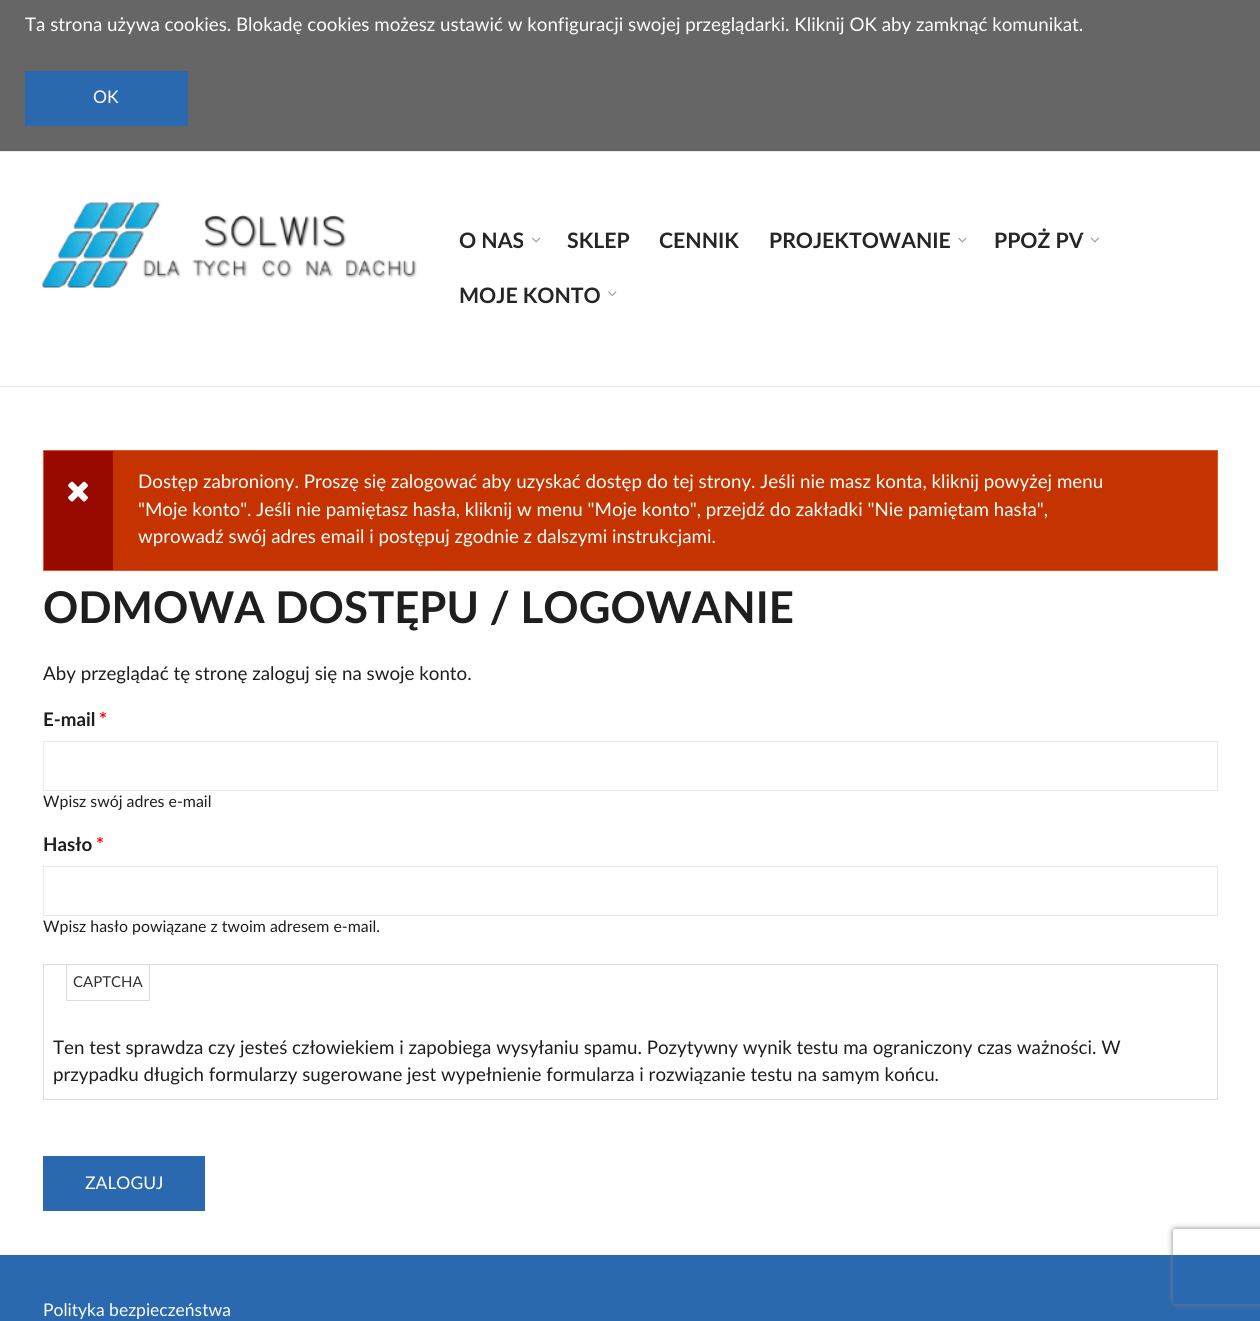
#include <cairo.h>
#include <math.h>
#include <stddef.h>

static cairo_t *ctx;

static void use_color(int r, int g, int b) {
    cairo_set_source_rgb(ctx, r / 255.0, g / 255.0, b / 255.0);
}

static void round_rect(double x, double y, double w, double h, double r) {
    cairo_new_sub_path(ctx);
    cairo_arc(ctx, x + w - r, y + h - r, r, 0, M_PI / 2);
    cairo_arc(ctx, x + r, y + h - r, r, M_PI / 2, M_PI);
    cairo_arc(ctx, x + r, y + r, r, M_PI, 1.5 * M_PI);
    cairo_arc(ctx, x + w - r, y + r, r, 1.5 * M_PI, 2 * M_PI);
    cairo_close_path(ctx);
}

static void shadow(double x, double y, double w, double h, double r, double blur, double alpha) {
    cairo_push_group_with_content(ctx, CAIRO_CONTENT_ALPHA);
    cairo_set_operator(ctx, CAIRO_OPERATOR_SOURCE);
    for (int i = 15; i >= -15 && fmin(w, h) + blur * i / 3 > 0; i -= 2) {
        double e = blur * i / 6;
        cairo_set_source_rgba(ctx, 0, 0, 0, alpha * erfc((i - 1) / 8.5) / 2);
        round_rect(x - e, y - e, w + 2 * e, h + 2 * e, fmax(0, fmin(r + e + blur * .6, fmin(w, h) / 2 + e)));
        cairo_fill(ctx);
    }
    cairo_pattern_t *soft = cairo_pop_group(ctx);
    cairo_mask(ctx, soft);
    cairo_pattern_destroy(soft);
}

static void picture(const char *path, double x, double y, double w, double h) {
    cairo_surface_t *image = cairo_image_surface_create_from_png(path);
    cairo_save(ctx);
    cairo_set_source_surface(ctx, image, x, y);
    cairo_rectangle(ctx, x, y, w, h);
    cairo_fill(ctx);
    cairo_restore(ctx);
    cairo_surface_destroy(image);
}

int main(void) {
    cairo_surface_t *surface = cairo_image_surface_create(CAIRO_FORMAT_RGB24, 1260, 1321);
    ctx = cairo_create(surface);
    cairo_font_options_t *options = cairo_font_options_create();
    cairo_font_options_set_hint_metrics(options, CAIRO_HINT_METRICS_OFF);
    cairo_font_options_set_hint_style(options, CAIRO_HINT_STYLE_NONE);
    cairo_set_font_options(ctx, options);
    cairo_set_miter_limit(ctx, 4);
    use_color(255, 255, 255);
    cairo_paint(ctx);
    use_color(102, 102, 102);
    cairo_rectangle(ctx, 0, 0, 1260, 151);
    cairo_fill(ctx);
    cairo_select_font_face(ctx, "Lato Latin", CAIRO_FONT_SLANT_NORMAL, CAIRO_FONT_WEIGHT_NORMAL);
    cairo_set_font_size(ctx, 18.75);
    use_color(255, 255, 255);
    cairo_move_to(ctx, 25, 31);
    cairo_show_text(ctx, "Ta strona używa cookies. Blokadę cookies możesz ustawić w konfiguracji swojej przeglądarki. Kliknij OK aby zamknąć komunikat.");
    use_color(42, 104, 175);
    cairo_rectangle(ctx, 25, 71, 163, 55);
    cairo_fill(ctx);
    cairo_set_font_size(ctx, 17.5);
    use_color(255, 255, 255);
    cairo_move_to(ctx, 93, 103);
    cairo_show_text(ctx, "OK");
    use_color(230, 233, 237);
    cairo_rectangle(ctx, 0, 151, 1260, 1);
    cairo_fill(ctx);
    picture("img1.png", 42, 202, 375, 86);
    cairo_select_font_face(ctx, "Lato Latin", CAIRO_FONT_SLANT_NORMAL, CAIRO_FONT_WEIGHT_BOLD);
    cairo_set_font_size(ctx, 21.25);
    use_color(37, 37, 37);
    cairo_move_to(ctx, 459, 248);
    cairo_show_text(ctx, "O NAS");
    picture("img2.png", 522, 234, 1, 2);
    picture("img3.png", 532, 237, 9, 6);
    cairo_move_to(ctx, 567, 248);
    cairo_show_text(ctx, "SKLEP");
    cairo_move_to(ctx, 659, 248);
    cairo_show_text(ctx, "CENNIK");
    cairo_move_to(ctx, 769, 248);
    cairo_show_text(ctx, "PROJEKTOWANIE");
    use_color(62, 62, 62);
    cairo_rectangle(ctx, 949, 234, 1, 1);
    cairo_fill(ctx);
    picture("img4.png", 958, 237, 9, 6);
    use_color(37, 37, 37);
    cairo_move_to(ctx, 994, 248);
    cairo_show_text(ctx, "PPOŻ PV");
    picture("img5.png", 1081, 234, 2, 3);
    picture("img6.png", 1090, 237, 9, 6);
    cairo_move_to(ctx, 459, 303);
    cairo_show_text(ctx, "MOJE KONTO");
    picture("img7.png", 598, 290, 2, 2);
    picture("img8.png", 608, 291, 9, 6);
    use_color(230, 233, 237);
    cairo_rectangle(ctx, 0, 386, 1260, 1);
    cairo_fill(ctx);
    use_color(197, 51, 0);
    cairo_rectangle(ctx, 113, 451, 1104, 119);
    cairo_fill(ctx);
    cairo_rectangle(ctx, 43.5, 450.5, 1174, 120);
    use_color(237, 84, 29);
    cairo_set_line_width(ctx, 1);
    cairo_stroke(ctx);
    use_color(152, 10, 0);
    cairo_rectangle(ctx, 44, 451, 69, 119);
    cairo_fill(ctx);
    picture("img9.png", 68, 481, 20, 21);
    cairo_select_font_face(ctx, "Lato Latin", CAIRO_FONT_SLANT_NORMAL, CAIRO_FONT_WEIGHT_NORMAL);
    cairo_set_font_size(ctx, 18.75);
    use_color(255, 255, 255);
    cairo_move_to(ctx, 138, 488);
    cairo_show_text(ctx, "Dostęp zabroniony. Proszę się zalogować aby uzyskać dostęp do tej strony. Jeśli nie masz konta, kliknij powyżej menu");
    cairo_move_to(ctx, 138, 516);
    cairo_show_text(ctx, "\"Moje konto\". Jeśli nie pamiętasz hasła, kliknij w menu \"Moje konto\", przejdź do zakładki \"Nie pamiętam hasła\",");
    cairo_move_to(ctx, 138, 543);
    cairo_show_text(ctx, "wprowadź swój adres email i postępuj zgodnie z dalszymi instrukcjami.");
    cairo_select_font_face(ctx, "Lato Latin", CAIRO_FONT_SLANT_NORMAL, CAIRO_FONT_WEIGHT_BOLD);
    cairo_set_font_size(ctx, 43.75);
    use_color(30, 30, 30);
    cairo_move_to(ctx, 43, 623);
    cairo_show_text(ctx, "ODMOWA DOSTĘPU / LOGOWANIE");
    cairo_select_font_face(ctx, "Lato Latin", CAIRO_FONT_SLANT_NORMAL, CAIRO_FONT_WEIGHT_NORMAL);
    cairo_set_font_size(ctx, 18.75);
    cairo_move_to(ctx, 43, 680);
    cairo_show_text(ctx, "Aby przeglądać tę stronę zaloguj się na swoje konto.");
    cairo_select_font_face(ctx, "Lato Latin", CAIRO_FONT_SLANT_NORMAL, CAIRO_FONT_WEIGHT_BOLD);
    cairo_move_to(ctx, 43, 726);
    cairo_show_text(ctx, "E-mail");
    use_color(255, 0, 0);
    cairo_move_to(ctx, 99, 726);
    cairo_show_text(ctx, "*");
    cairo_rectangle(ctx, 43.5, 741.5, 1174, 49);
    use_color(230, 233, 237);
    cairo_stroke(ctx);
    cairo_select_font_face(ctx, "Lato Latin", CAIRO_FONT_SLANT_NORMAL, CAIRO_FONT_WEIGHT_NORMAL);
    cairo_set_font_size(ctx, 15.9);
    use_color(30, 30, 30);
    cairo_move_to(ctx, 43, 807);
    cairo_show_text(ctx, "Wpisz swój adres e-mail");
    cairo_select_font_face(ctx, "Lato Latin", CAIRO_FONT_SLANT_NORMAL, CAIRO_FONT_WEIGHT_BOLD);
    cairo_set_font_size(ctx, 18.75);
    cairo_move_to(ctx, 43, 851);
    cairo_show_text(ctx, "Hasło");
    use_color(255, 0, 0);
    cairo_move_to(ctx, 96, 851);
    cairo_show_text(ctx, "*");
    cairo_rectangle(ctx, 43.5, 866.5, 1174, 49);
    use_color(230, 233, 237);
    cairo_stroke(ctx);
    cairo_select_font_face(ctx, "Lato Latin", CAIRO_FONT_SLANT_NORMAL, CAIRO_FONT_WEIGHT_NORMAL);
    cairo_set_font_size(ctx, 15.9);
    use_color(30, 30, 30);
    cairo_move_to(ctx, 43, 932);
    cairo_show_text(ctx, "Wpisz hasło powiązane z twoim adresem e-mail.");
    cairo_rectangle(ctx, 43.5, 964.5, 1174, 135);
    use_color(221, 221, 221);
    cairo_stroke(ctx);
    cairo_rectangle(ctx, 66.5, 964.5, 83, 36);
    cairo_stroke(ctx);
    cairo_set_font_size(ctx, 15);
    use_color(51, 51, 51);
    cairo_move_to(ctx, 73, 987);
    cairo_show_text(ctx, "CAPTCHA");
    cairo_set_font_size(ctx, 18.75);
    use_color(30, 30, 30);
    cairo_move_to(ctx, 53, 1054);
    cairo_show_text(ctx, "Ten test sprawdza czy jesteś człowiekiem i zapobiega wysyłaniu spamu. Pozytywny wynik testu ma ograniczony czas ważności. W");
    cairo_move_to(ctx, 53, 1081);
    cairo_show_text(ctx, "przypadku długich formularzy sugerowane jest wypełnienie formularza i rozwiązanie testu na samym końcu.");
    use_color(42, 104, 175);
    cairo_rectangle(ctx, 43, 1156, 162, 55);
    cairo_fill(ctx);
    cairo_set_font_size(ctx, 17.5);
    use_color(255, 255, 255);
    cairo_move_to(ctx, 85, 1189);
    cairo_show_text(ctx, "ZALOGUJ");
    use_color(42, 104, 175);
    cairo_rectangle(ctx, 0, 1255, 1260, 66);
    cairo_fill(ctx);
    use_color(255, 255, 255);
    cairo_move_to(ctx, 43, 1316);
    cairo_show_text(ctx, "Polityka bezpieczeństwa");
    cairo_save(ctx);
    cairo_set_fill_rule(ctx, CAIRO_FILL_RULE_EVEN_ODD);
    cairo_new_path(ctx);
    cairo_move_to(ctx, 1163, 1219);
    cairo_line_to(ctx, 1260, 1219);
    cairo_line_to(ctx, 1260, 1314);
    cairo_line_to(ctx, 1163, 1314);
    cairo_close_path(ctx);
    cairo_move_to(ctx, 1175.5, 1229);
    cairo_line_to(ctx, 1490.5, 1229);
    cairo_curve_to(ctx, 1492, 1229, 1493, 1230, 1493, 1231.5);
    cairo_line_to(ctx, 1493, 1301.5);
    cairo_curve_to(ctx, 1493, 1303, 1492, 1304, 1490.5, 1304);
    cairo_line_to(ctx, 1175.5, 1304);
    cairo_curve_to(ctx, 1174, 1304, 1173, 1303, 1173, 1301.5);
    cairo_line_to(ctx, 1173, 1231.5);
    cairo_curve_to(ctx, 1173, 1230, 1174, 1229, 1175.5, 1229);
    cairo_close_path(ctx);
    cairo_clip(ctx);
    use_color(128, 128, 128);
    shadow(1173, 1229, 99, 75, 2.5, 3, 1);
    cairo_restore(ctx);
    cairo_surface_write_to_png(surface, "result.png");
    cairo_font_options_destroy(options);
    cairo_destroy(ctx);
    cairo_surface_destroy(surface);
    return 0;
}
